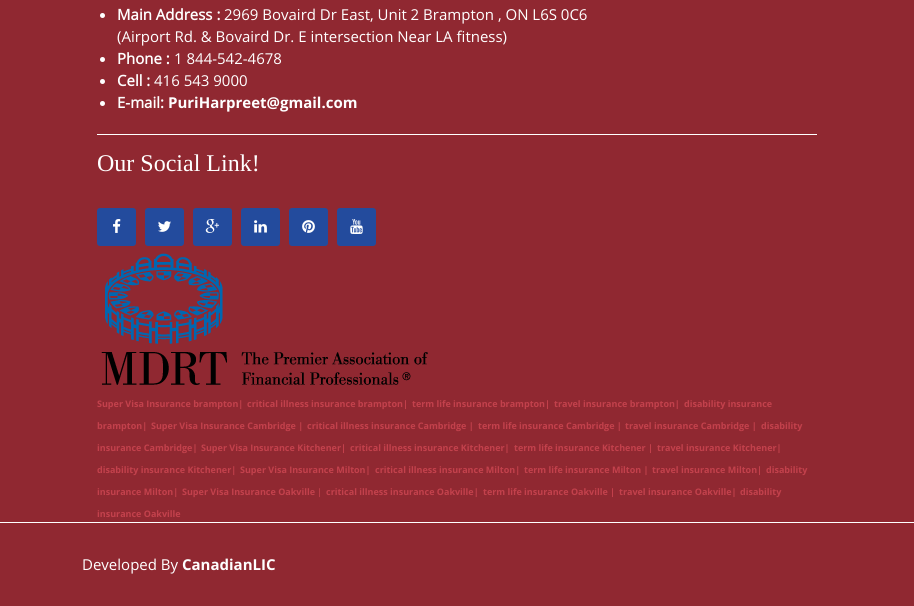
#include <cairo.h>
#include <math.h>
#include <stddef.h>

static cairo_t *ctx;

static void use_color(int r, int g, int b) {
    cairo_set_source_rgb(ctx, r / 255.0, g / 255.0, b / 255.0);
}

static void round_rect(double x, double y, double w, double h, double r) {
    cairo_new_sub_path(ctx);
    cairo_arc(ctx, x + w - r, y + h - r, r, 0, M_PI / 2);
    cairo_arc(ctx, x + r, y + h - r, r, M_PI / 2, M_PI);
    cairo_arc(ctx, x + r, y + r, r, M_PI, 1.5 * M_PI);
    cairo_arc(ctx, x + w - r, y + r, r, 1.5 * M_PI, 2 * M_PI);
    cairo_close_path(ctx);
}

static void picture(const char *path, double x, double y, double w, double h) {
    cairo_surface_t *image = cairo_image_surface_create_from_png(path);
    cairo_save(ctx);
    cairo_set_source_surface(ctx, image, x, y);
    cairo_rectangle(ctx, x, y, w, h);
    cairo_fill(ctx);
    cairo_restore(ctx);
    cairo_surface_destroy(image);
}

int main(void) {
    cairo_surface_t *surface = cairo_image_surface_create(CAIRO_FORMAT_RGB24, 914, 606);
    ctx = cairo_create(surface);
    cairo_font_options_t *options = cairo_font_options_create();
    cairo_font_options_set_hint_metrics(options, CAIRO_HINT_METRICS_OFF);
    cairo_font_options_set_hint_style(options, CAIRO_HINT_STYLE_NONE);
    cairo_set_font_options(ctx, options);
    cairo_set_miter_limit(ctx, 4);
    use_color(144, 40, 49);
    cairo_paint(ctx);
    use_color(255, 255, 255);
    cairo_rectangle(ctx, 0, 522, 914, 1);
    cairo_fill(ctx);
    cairo_arc(ctx, 102.5, 15.5, 2.5, 0, 2 * M_PI);
    cairo_fill(ctx);
    cairo_select_font_face(ctx, "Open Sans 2", CAIRO_FONT_SLANT_NORMAL, CAIRO_FONT_WEIGHT_BOLD);
    cairo_set_font_size(ctx, 15);
    cairo_move_to(ctx, 117, 20);
    cairo_show_text(ctx, "Main Address :");
    cairo_select_font_face(ctx, "Open Sans", CAIRO_FONT_SLANT_NORMAL, CAIRO_FONT_WEIGHT_NORMAL);
    cairo_move_to(ctx, 224, 20);
    cairo_show_text(ctx, "2969 Bovaird Dr East, Unit 2 Brampton , ON L6S 0C6");
    cairo_move_to(ctx, 117, 42);
    cairo_show_text(ctx, "(Airport Rd. & Bovaird Dr. E intersection Near LA fitness)");
    cairo_new_path(ctx);
    cairo_arc(ctx, 102.5, 59.5, 2.5, 0, 2 * M_PI);
    cairo_fill(ctx);
    cairo_select_font_face(ctx, "Open Sans 2", CAIRO_FONT_SLANT_NORMAL, CAIRO_FONT_WEIGHT_BOLD);
    cairo_move_to(ctx, 117, 64);
    cairo_show_text(ctx, "Phone :");
    cairo_select_font_face(ctx, "Open Sans", CAIRO_FONT_SLANT_NORMAL, CAIRO_FONT_WEIGHT_NORMAL);
    cairo_move_to(ctx, 174, 64);
    cairo_show_text(ctx, "1 844-542-4678");
    cairo_new_path(ctx);
    cairo_arc(ctx, 102.5, 81.5, 2.5, 0, 2 * M_PI);
    cairo_fill(ctx);
    cairo_select_font_face(ctx, "Open Sans 2", CAIRO_FONT_SLANT_NORMAL, CAIRO_FONT_WEIGHT_BOLD);
    cairo_move_to(ctx, 117, 86);
    cairo_show_text(ctx, "Cell :");
    cairo_select_font_face(ctx, "Open Sans", CAIRO_FONT_SLANT_NORMAL, CAIRO_FONT_WEIGHT_NORMAL);
    cairo_move_to(ctx, 154, 86);
    cairo_show_text(ctx, "416 543 9000");
    cairo_new_path(ctx);
    cairo_arc(ctx, 102.5, 103.5, 2.5, 0, 2 * M_PI);
    cairo_fill(ctx);
    cairo_select_font_face(ctx, "Open Sans 2", CAIRO_FONT_SLANT_NORMAL, CAIRO_FONT_WEIGHT_BOLD);
    cairo_move_to(ctx, 117, 108);
    cairo_show_text(ctx, "E-mail:");
    cairo_select_font_face(ctx, "Open Sans", CAIRO_FONT_SLANT_NORMAL, CAIRO_FONT_WEIGHT_BOLD);
    cairo_move_to(ctx, 168, 108);
    cairo_show_text(ctx, "PuriHarpreet@gmail.com");
    cairo_rectangle(ctx, 97, 134, 720, 1);
    cairo_fill(ctx);
    cairo_select_font_face(ctx, "Liberation Serif", CAIRO_FONT_SLANT_NORMAL, CAIRO_FONT_WEIGHT_NORMAL);
    cairo_set_font_size(ctx, 24);
    cairo_move_to(ctx, 97, 171);
    cairo_show_text(ctx, "Our Social Link!");
    use_color(35, 75, 157);
    round_rect(97, 208, 39, 38, 3);
    cairo_fill(ctx);
    picture("img1.png", 113, 219, 8, 14);
    round_rect(145, 208, 39, 38, 3);
    cairo_fill(ctx);
    picture("img2.png", 158, 221, 13, 11);
    round_rect(193, 208, 39, 38, 3);
    cairo_fill(ctx);
    picture("img3.png", 205, 219, 15, 14);
    round_rect(241, 208, 39, 38, 3);
    cairo_fill(ctx);
    picture("img4.png", 254, 220, 13, 13);
    round_rect(289, 208, 39, 38, 3);
    cairo_fill(ctx);
    picture("img5.png", 302, 220, 13, 13);
    round_rect(337, 208, 39, 38, 3);
    cairo_fill(ctx);
    cairo_select_font_face(ctx, "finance", CAIRO_FONT_SLANT_NORMAL, CAIRO_FONT_WEIGHT_NORMAL);
    cairo_set_font_size(ctx, 15);
    use_color(255, 255, 255);
    cairo_move_to(ctx, 349, 234);
    cairo_show_text(ctx, "!");
    picture("img6.png", 101, 253, 327, 132);
    cairo_select_font_face(ctx, "Open Sans", CAIRO_FONT_SLANT_NORMAL, CAIRO_FONT_WEIGHT_BOLD);
    cairo_set_font_size(ctx, 9);
    use_color(195, 65, 76);
    cairo_move_to(ctx, 97, 407);
    cairo_show_text(ctx, "Super Visa Insurance brampton|");
    cairo_move_to(ctx, 247, 407);
    cairo_show_text(ctx, "critical illness insurance brampton|");
    cairo_move_to(ctx, 412, 407);
    cairo_show_text(ctx, "term life insurance brampton|");
    cairo_move_to(ctx, 554, 407);
    cairo_show_text(ctx, "travel insurance brampton|");
    cairo_move_to(ctx, 684, 407);
    cairo_show_text(ctx, "disability insurance");
    cairo_move_to(ctx, 97, 429);
    cairo_show_text(ctx, "brampton|");
    cairo_move_to(ctx, 151, 429);
    cairo_show_text(ctx, "Super Visa Insurance Cambridge |");
    cairo_move_to(ctx, 307, 429);
    cairo_show_text(ctx, "critical illness insurance Cambridge |");
    cairo_move_to(ctx, 478, 429);
    cairo_show_text(ctx, "term life insurance Cambridge |");
    cairo_move_to(ctx, 625, 429);
    cairo_show_text(ctx, "travel insurance Cambridge |");
    cairo_move_to(ctx, 761, 429);
    cairo_show_text(ctx, "disability");
    cairo_move_to(ctx, 97, 451);
    cairo_show_text(ctx, "insurance Cambridge|");
    cairo_move_to(ctx, 201, 451);
    cairo_show_text(ctx, "Super Visa Insurance Kitchener|");
    cairo_move_to(ctx, 350, 451);
    cairo_show_text(ctx, "critical illness insurance Kitchener|");
    cairo_move_to(ctx, 514, 451);
    cairo_show_text(ctx, "term life insurance Kitchener |");
    cairo_move_to(ctx, 657, 451);
    cairo_show_text(ctx, "travel insurance Kitchener|");
    cairo_move_to(ctx, 97, 473);
    cairo_show_text(ctx, "disability insurance Kitchener|");
    cairo_move_to(ctx, 240, 473);
    cairo_show_text(ctx, "Super Visa Insurance Milton|");
    cairo_move_to(ctx, 375, 473);
    cairo_show_text(ctx, "critical illness insurance Milton|");
    cairo_move_to(ctx, 524, 473);
    cairo_show_text(ctx, "term life insurance Milton |");
    cairo_move_to(ctx, 652, 473);
    cairo_show_text(ctx, "travel insurance Milton|");
    cairo_move_to(ctx, 766, 473);
    cairo_show_text(ctx, "disability");
    cairo_move_to(ctx, 97, 495);
    cairo_show_text(ctx, "insurance Milton|");
    cairo_move_to(ctx, 182, 495);
    cairo_show_text(ctx, "Super Visa Insurance Oakville |");
    cairo_move_to(ctx, 326, 495);
    cairo_show_text(ctx, "critical illness insurance Oakville|");
    cairo_move_to(ctx, 483, 495);
    cairo_show_text(ctx, "term life insurance Oakville |");
    cairo_move_to(ctx, 619, 495);
    cairo_show_text(ctx, "travel insurance Oakville|");
    cairo_move_to(ctx, 740, 495);
    cairo_show_text(ctx, "disability");
    cairo_move_to(ctx, 97, 517);
    cairo_show_text(ctx, "insurance Oakville");
    cairo_select_font_face(ctx, "Open Sans", CAIRO_FONT_SLANT_NORMAL, CAIRO_FONT_WEIGHT_NORMAL);
    cairo_set_font_size(ctx, 15);
    use_color(255, 255, 255);
    cairo_move_to(ctx, 82, 570);
    cairo_show_text(ctx, "Developed By");
    cairo_select_font_face(ctx, "Open Sans", CAIRO_FONT_SLANT_NORMAL, CAIRO_FONT_WEIGHT_BOLD);
    cairo_move_to(ctx, 182, 570);
    cairo_show_text(ctx, "CanadianLIC");
    cairo_surface_write_to_png(surface, "result.png");
    cairo_font_options_destroy(options);
    cairo_destroy(ctx);
    cairo_surface_destroy(surface);
    return 0;
}
